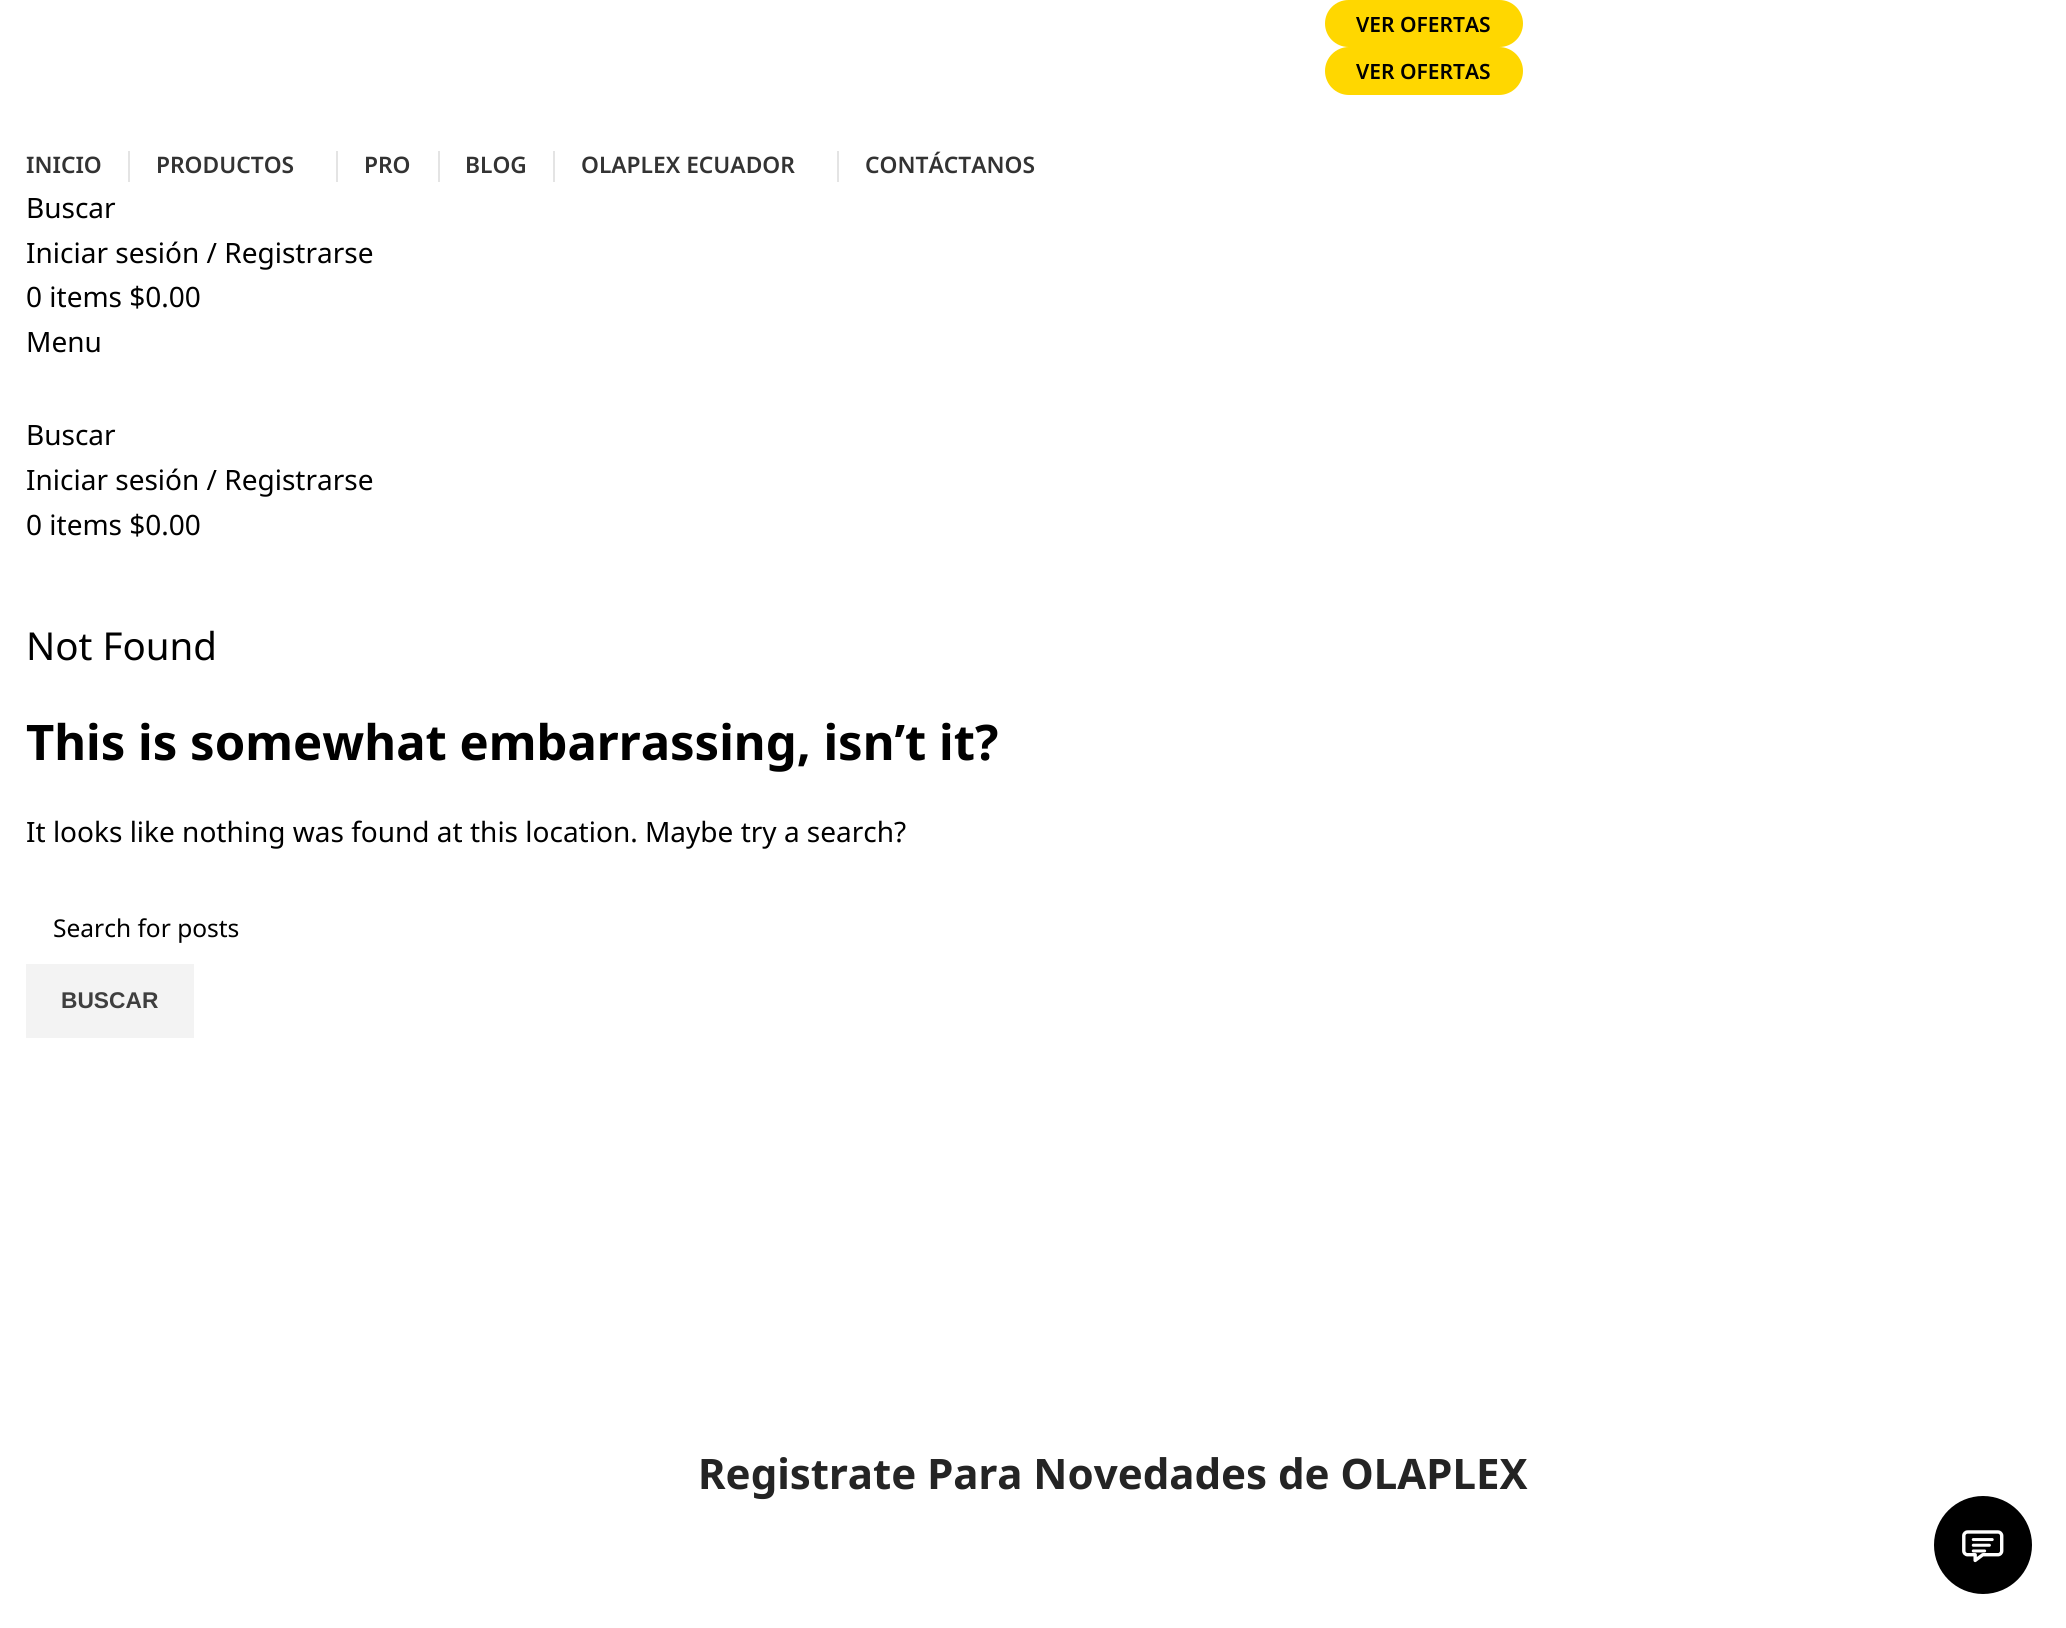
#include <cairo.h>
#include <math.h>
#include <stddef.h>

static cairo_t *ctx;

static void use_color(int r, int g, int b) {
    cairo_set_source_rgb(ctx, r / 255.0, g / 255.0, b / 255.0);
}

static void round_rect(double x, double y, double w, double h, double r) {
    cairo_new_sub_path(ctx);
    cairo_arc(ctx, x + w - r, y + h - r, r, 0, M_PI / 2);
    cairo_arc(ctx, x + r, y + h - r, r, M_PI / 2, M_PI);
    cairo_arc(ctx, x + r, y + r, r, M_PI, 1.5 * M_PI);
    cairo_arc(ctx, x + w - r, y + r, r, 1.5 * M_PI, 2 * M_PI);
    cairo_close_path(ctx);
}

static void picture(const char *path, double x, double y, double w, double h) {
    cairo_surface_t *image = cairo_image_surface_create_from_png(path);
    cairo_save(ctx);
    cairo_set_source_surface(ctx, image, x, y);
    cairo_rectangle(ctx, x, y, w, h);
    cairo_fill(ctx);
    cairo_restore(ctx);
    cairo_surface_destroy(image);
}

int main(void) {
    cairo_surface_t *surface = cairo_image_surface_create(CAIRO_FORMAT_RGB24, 2066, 1628);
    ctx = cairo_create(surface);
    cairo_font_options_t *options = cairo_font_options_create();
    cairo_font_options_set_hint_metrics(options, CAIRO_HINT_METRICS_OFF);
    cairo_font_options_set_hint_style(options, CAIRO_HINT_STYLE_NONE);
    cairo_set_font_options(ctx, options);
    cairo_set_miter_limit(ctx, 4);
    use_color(255, 255, 255);
    cairo_paint(ctx);
    use_color(255, 215, 0);
    round_rect(1325, 0, 198, 47, 23.5);
    cairo_fill(ctx);
    cairo_select_font_face(ctx, "Noto Sans SemiBold", CAIRO_FONT_SLANT_NORMAL, CAIRO_FONT_WEIGHT_NORMAL);
    cairo_set_font_size(ctx, 21);
    use_color(0, 0, 0);
    cairo_move_to(ctx, 1356, 32);
    cairo_show_text(ctx, "VER OFERTAS");
    use_color(255, 215, 0);
    round_rect(1325, 47, 198, 48, 24);
    cairo_fill(ctx);
    use_color(0, 0, 0);
    cairo_move_to(ctx, 1356, 79);
    cairo_show_text(ctx, "VER OFERTAS");
    cairo_set_font_size(ctx, 22.75);
    use_color(51, 51, 51);
    cairo_move_to(ctx, 26, 173);
    cairo_show_text(ctx, "INICIO");
    use_color(228, 228, 228);
    cairo_rectangle(ctx, 128, 151, 2, 31);
    cairo_fill(ctx);
    use_color(51, 51, 51);
    cairo_move_to(ctx, 156, 173);
    cairo_show_text(ctx, "PRODUCTOS");
    use_color(228, 228, 228);
    cairo_rectangle(ctx, 336, 151, 2, 31);
    cairo_fill(ctx);
    use_color(51, 51, 51);
    cairo_move_to(ctx, 364, 173);
    cairo_show_text(ctx, "PRO");
    use_color(228, 228, 228);
    cairo_rectangle(ctx, 438, 151, 2, 31);
    cairo_fill(ctx);
    use_color(51, 51, 51);
    cairo_move_to(ctx, 465, 173);
    cairo_show_text(ctx, "BLOG");
    use_color(228, 228, 228);
    cairo_rectangle(ctx, 553, 151, 2, 31);
    cairo_fill(ctx);
    use_color(51, 51, 51);
    cairo_move_to(ctx, 581, 173);
    cairo_show_text(ctx, "OLAPLEX ECUADOR");
    use_color(228, 228, 228);
    cairo_rectangle(ctx, 837, 151, 2, 31);
    cairo_fill(ctx);
    use_color(51, 51, 51);
    cairo_move_to(ctx, 865, 173);
    cairo_show_text(ctx, "CONTÁCTANOS");
    cairo_select_font_face(ctx, "Noto Sans", CAIRO_FONT_SLANT_NORMAL, CAIRO_FONT_WEIGHT_NORMAL);
    cairo_set_font_size(ctx, 28);
    use_color(0, 0, 0);
    cairo_move_to(ctx, 26, 218);
    cairo_show_text(ctx, "Buscar");
    cairo_move_to(ctx, 26, 263);
    cairo_show_text(ctx, "Iniciar sesión / Registrarse");
    cairo_move_to(ctx, 26, 307);
    cairo_show_text(ctx, "0 items $0.00");
    cairo_move_to(ctx, 26, 352);
    cairo_show_text(ctx, "Menu");
    cairo_move_to(ctx, 26, 445);
    cairo_show_text(ctx, "Buscar");
    cairo_move_to(ctx, 26, 490);
    cairo_show_text(ctx, "Iniciar sesión / Registrarse");
    cairo_move_to(ctx, 26, 535);
    cairo_show_text(ctx, "0 items $0.00");
    cairo_set_font_size(ctx, 38.5);
    cairo_move_to(ctx, 26, 660);
    cairo_show_text(ctx, "Not Found");
    cairo_select_font_face(ctx, "Noto Sans", CAIRO_FONT_SLANT_NORMAL, CAIRO_FONT_WEIGHT_BOLD);
    cairo_set_font_size(ctx, 49);
    cairo_move_to(ctx, 26, 760);
    cairo_show_text(ctx, "This is somewhat embarrassing, isn’t it?");
    cairo_select_font_face(ctx, "Noto Sans", CAIRO_FONT_SLANT_NORMAL, CAIRO_FONT_WEIGHT_NORMAL);
    cairo_set_font_size(ctx, 28);
    cairo_move_to(ctx, 26, 842);
    cairo_show_text(ctx, "It looks like nothing was found at this location. Maybe try a search?");
    cairo_set_font_size(ctx, 24.5);
    cairo_move_to(ctx, 53, 937);
    cairo_show_text(ctx, "Search for posts");
    use_color(243, 243, 243);
    cairo_rectangle(ctx, 26, 964, 168, 74);
    cairo_fill(ctx);
    cairo_select_font_face(ctx, "Liberation Sans", CAIRO_FONT_SLANT_NORMAL, CAIRO_FONT_WEIGHT_BOLD);
    cairo_set_font_size(ctx, 22.75);
    use_color(62, 62, 62);
    cairo_move_to(ctx, 61, 1008);
    cairo_show_text(ctx, "BUSCAR");
    cairo_select_font_face(ctx, "Noto Sans", CAIRO_FONT_SLANT_NORMAL, CAIRO_FONT_WEIGHT_BOLD);
    cairo_set_font_size(ctx, 42);
    use_color(36, 36, 36);
    cairo_move_to(ctx, 698, 1489);
    cairo_show_text(ctx, "Registrate Para Novedades de OLAPLEX");
    use_color(0, 0, 0);
    cairo_new_path(ctx);
    cairo_arc(ctx, 1983, 1545, 49, 0, 2 * M_PI);
    cairo_fill(ctx);
    picture("img1.png", 1962, 1530, 42, 33);
    cairo_surface_write_to_png(surface, "result.png");
    cairo_font_options_destroy(options);
    cairo_destroy(ctx);
    cairo_surface_destroy(surface);
    return 0;
}
